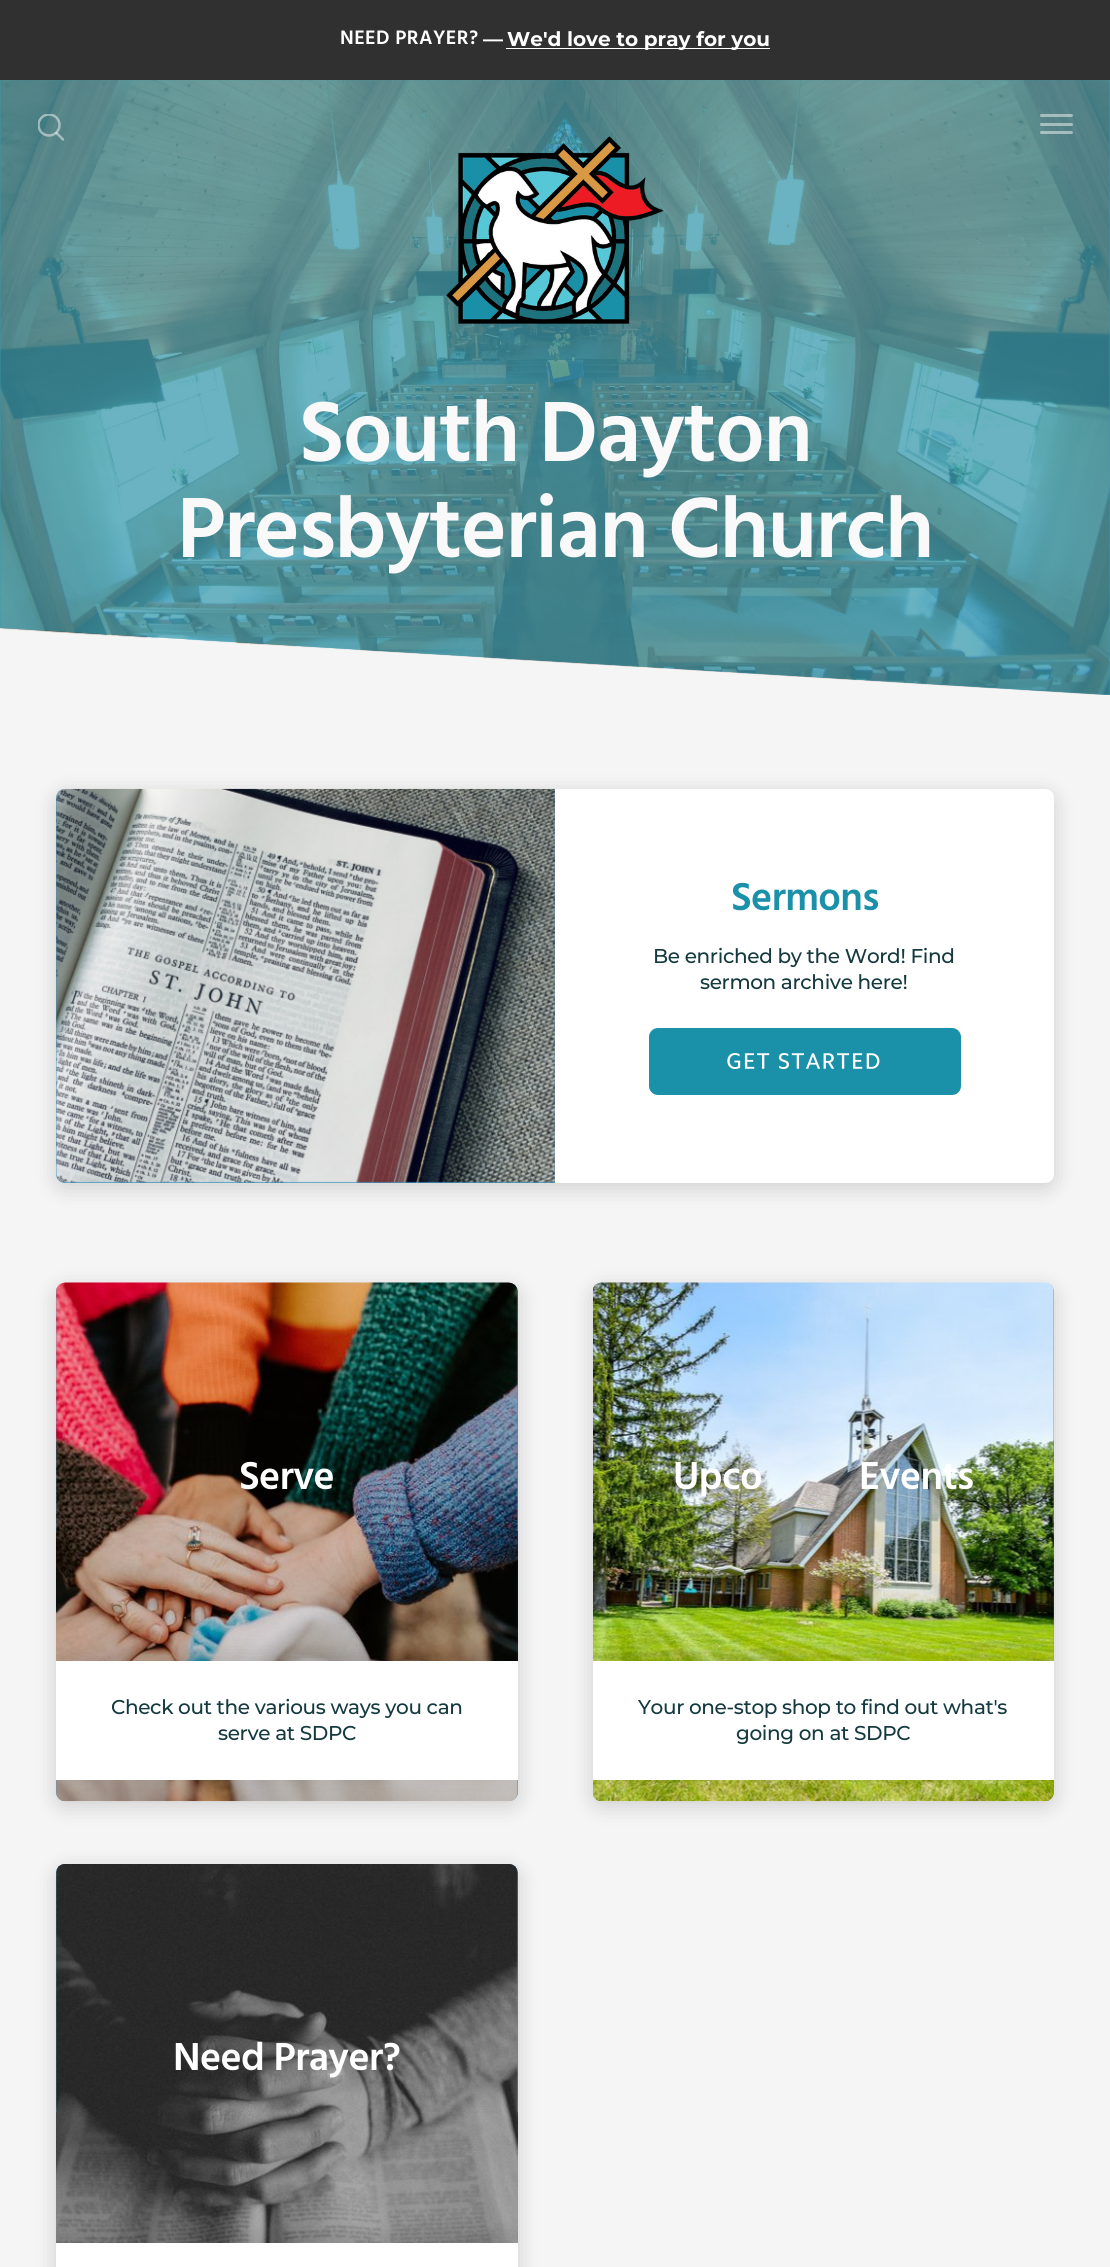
#include <cairo.h>
#include <math.h>
#include <stddef.h>

static cairo_t *ctx;

static void use_color(int r, int g, int b) {
    cairo_set_source_rgb(ctx, r / 255.0, g / 255.0, b / 255.0);
}

static void spaced_text(double x, double y, const char *s, double letter, double word) {
    cairo_move_to(ctx, x, y);
    while (*s) {
        char ch[5] = {0};
        int n = 0;
        do ch[n++] = *s++; while ((*s & 0xC0) == 0x80);
        cairo_show_text(ctx, ch);
        cairo_rel_move_to(ctx, letter + word * (*ch == ' '), 0);
    }
}

static void round_rect(double x, double y, double w, double h, double r) {
    cairo_new_sub_path(ctx);
    cairo_arc(ctx, x + w - r, y + h - r, r, 0, M_PI / 2);
    cairo_arc(ctx, x + r, y + h - r, r, M_PI / 2, M_PI);
    cairo_arc(ctx, x + r, y + r, r, M_PI, 1.5 * M_PI);
    cairo_arc(ctx, x + w - r, y + r, r, 1.5 * M_PI, 2 * M_PI);
    cairo_close_path(ctx);
}

static void shadow(double x, double y, double w, double h, double r, double blur, double alpha) {
    cairo_push_group_with_content(ctx, CAIRO_CONTENT_ALPHA);
    cairo_set_operator(ctx, CAIRO_OPERATOR_SOURCE);
    for (int i = 15; i >= -15 && fmin(w, h) + blur * i / 3 > 0; i -= 2) {
        double e = blur * i / 6;
        cairo_set_source_rgba(ctx, 0, 0, 0, alpha * erfc((i - 1) / 8.5) / 2);
        round_rect(x - e, y - e, w + 2 * e, h + 2 * e, fmax(0, fmin(r + e + blur * .6, fmin(w, h) / 2 + e)));
        cairo_fill(ctx);
    }
    cairo_pattern_t *soft = cairo_pop_group(ctx);
    cairo_mask(ctx, soft);
    cairo_pattern_destroy(soft);
}

static void picture(const char *path, double x, double y, double w, double h) {
    cairo_surface_t *image = cairo_image_surface_create_from_png(path);
    cairo_save(ctx);
    cairo_set_source_surface(ctx, image, x, y);
    cairo_rectangle(ctx, x, y, w, h);
    cairo_fill(ctx);
    cairo_restore(ctx);
    cairo_surface_destroy(image);
}

int main(void) {
    cairo_surface_t *surface = cairo_image_surface_create(CAIRO_FORMAT_RGB24, 1110, 2267);
    ctx = cairo_create(surface);
    cairo_font_options_t *options = cairo_font_options_create();
    cairo_font_options_set_hint_metrics(options, CAIRO_HINT_METRICS_OFF);
    cairo_font_options_set_hint_style(options, CAIRO_HINT_STYLE_NONE);
    cairo_set_font_options(ctx, options);
    cairo_set_miter_limit(ctx, 4);
    use_color(245, 245, 245);
    cairo_paint(ctx);
    use_color(48, 48, 48);
    cairo_rectangle(ctx, 0, 0, 1110, 80);
    cairo_fill(ctx);
    cairo_select_font_face(ctx, "Hind SemiBold", CAIRO_FONT_SLANT_NORMAL, CAIRO_FONT_WEIGHT_NORMAL);
    cairo_set_font_size(ctx, 20);
    use_color(255, 255, 255);
    spaced_text(340, 44, "NEED PRAYER?", 0.4, 0);
    cairo_select_font_face(ctx, "Montserrat", CAIRO_FONT_SLANT_NORMAL, CAIRO_FONT_WEIGHT_BOLD);
    cairo_move_to(ctx, 483, 46);
    cairo_show_text(ctx, "—");
    cairo_rectangle(ctx, 506, 48, 264, 1);
    cairo_fill(ctx);
    cairo_move_to(ctx, 507, 46);
    cairo_show_text(ctx, "We'd love to pray for you");
    use_color(57, 154, 174);
    cairo_new_path(ctx);
    cairo_move_to(ctx, 0, 80);
    cairo_line_to(ctx, 0, 628);
    cairo_line_to(ctx, 1110, 695);
    cairo_line_to(ctx, 1110, 80);
    cairo_close_path(ctx);
    cairo_fill(ctx);
    picture("img1.png", 0, 80, 1110, 615);
    cairo_set_source_rgba(ctx, 0.224, 0.604, 0.682, 0.75);
    cairo_new_path(ctx);
    cairo_move_to(ctx, 0, 80);
    cairo_line_to(ctx, 0, 628);
    cairo_line_to(ctx, 1110, 695);
    cairo_line_to(ctx, 1110, 80);
    cairo_close_path(ctx);
    cairo_fill(ctx);
    cairo_save(ctx);
    cairo_rectangle(ctx, 38, 114, 27, 27);
    cairo_clip(ctx);
    cairo_arc(ctx, 49, 125, 10.5, 0, 2 * M_PI);
    cairo_set_source_rgba(ctx, 0.976, 0.976, 0.976, 0.5);
    cairo_set_line_width(ctx, 2.5);
    cairo_stroke(ctx);
    cairo_restore(ctx);
    cairo_new_path(ctx);
    cairo_move_to(ctx, 56.5, 133);
    cairo_line_to(ctx, 63, 139.5);
    cairo_set_source_rgba(ctx, 0.976, 0.976, 0.976, 0.5);
    cairo_set_line_width(ctx, 2.5);
    cairo_set_line_cap(ctx, CAIRO_LINE_CAP_ROUND);
    cairo_stroke(ctx);
    round_rect(1040, 114, 33, 3, 1.5);
    cairo_fill(ctx);
    round_rect(1040, 123, 33, 3, 1.5);
    cairo_fill(ctx);
    round_rect(1040, 131, 33, 3, 1.5);
    cairo_fill(ctx);
    picture("img2.png", 446, 136, 218, 188);
    cairo_select_font_face(ctx, "Hind SemiBold", CAIRO_FONT_SLANT_NORMAL, CAIRO_FONT_WEIGHT_NORMAL);
    cairo_set_font_size(ctx, 87.5);
    use_color(249, 249, 249);
    spaced_text(299, 461, "South Dayton", -1.4, 0);
    spaced_text(177, 557, "Presbyterian Church", -1.4, 0);
    use_color(0, 0, 0);
    shadow(56, 794, 998, 394, 9, 11, 0.16);
    use_color(255, 255, 255);
    round_rect(56, 789, 998, 394, 9);
    cairo_fill(ctx);
    use_color(66, 150, 191);
    cairo_new_path(ctx);
    cairo_move_to(ctx, 65, 789);
    cairo_line_to(ctx, 555, 789);
    cairo_line_to(ctx, 555, 1183);
    cairo_line_to(ctx, 65, 1183);
    cairo_curve_to(ctx, 60, 1183, 56, 1179, 56, 1174);
    cairo_line_to(ctx, 56, 798);
    cairo_curve_to(ctx, 56, 793, 60, 789, 65, 789);
    cairo_close_path(ctx);
    cairo_fill(ctx);
    picture("img3.png", 56, 788, 499, 395);
    cairo_set_font_size(ctx, 40);
    use_color(27, 144, 169);
    spaced_text(731, 910, "Sermons", -0.6, 0);
    cairo_select_font_face(ctx, "Montserrat Medium", CAIRO_FONT_SLANT_NORMAL, CAIRO_FONT_WEIGHT_NORMAL);
    cairo_set_font_size(ctx, 20);
    use_color(20, 57, 63);
    spaced_text(653, 963, "Be enriched by the Word! Find", -0.35, 0);
    spaced_text(700, 989, "sermon archive here!", -0.35, 0);
    use_color(27, 144, 169);
    round_rect(649, 1028, 312, 67, 9);
    cairo_fill(ctx);
    picture("img4.png", 727, 1053, 153, 16);
    use_color(0, 0, 0);
    shadow(56, 1288, 462, 518, 9, 11, 0.16);
    use_color(66, 150, 191);
    round_rect(56, 1283, 462, 518, 9);
    cairo_fill(ctx);
    picture("img5.png", 56, 1282, 462, 520);
    cairo_select_font_face(ctx, "Hind SemiBold", CAIRO_FONT_SLANT_NORMAL, CAIRO_FONT_WEIGHT_NORMAL);
    cairo_set_font_size(ctx, 40);
    use_color(255, 255, 255);
    spaced_text(239, 1489, "Serve", -0.6, 0);
    cairo_save(ctx);
    round_rect(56, 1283, 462, 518, 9);
    cairo_clip(ctx);
    use_color(0, 0, 0);
    shadow(56, 1654, 462, 119, 0, 10.5, 0.12);
    cairo_restore(ctx);
    cairo_rectangle(ctx, 56, 1661, 462, 119);
    cairo_fill(ctx);
    cairo_select_font_face(ctx, "Montserrat Medium", CAIRO_FONT_SLANT_NORMAL, CAIRO_FONT_WEIGHT_NORMAL);
    cairo_set_font_size(ctx, 20);
    use_color(20, 57, 63);
    spaced_text(111, 1714, "Check out the various ways you can", -0.35, 0);
    spaced_text(218, 1740, "serve at SDPC", -0.35, 0);
    use_color(0, 0, 0);
    shadow(593, 1288, 461, 518, 9, 11, 0.16);
    use_color(66, 150, 191);
    round_rect(593, 1283, 461, 518, 9);
    cairo_fill(ctx);
    picture("img6.png", 593, 1282, 461, 520);
    cairo_select_font_face(ctx, "Hind SemiBold", CAIRO_FONT_SLANT_NORMAL, CAIRO_FONT_WEIGHT_NORMAL);
    cairo_set_font_size(ctx, 40);
    use_color(255, 255, 255);
    spaced_text(673, 1489, "Upco", -0.6, 0);
    spaced_text(859, 1489, "Events", -0.6, 0);
    cairo_save(ctx);
    round_rect(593, 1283, 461, 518, 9);
    cairo_clip(ctx);
    use_color(0, 0, 0);
    shadow(593, 1654, 461, 119, 0, 10.5, 0.12);
    cairo_restore(ctx);
    cairo_rectangle(ctx, 593, 1661, 461, 119);
    cairo_fill(ctx);
    cairo_select_font_face(ctx, "Montserrat Medium", CAIRO_FONT_SLANT_NORMAL, CAIRO_FONT_WEIGHT_NORMAL);
    cairo_set_font_size(ctx, 20);
    use_color(20, 57, 63);
    spaced_text(638, 1714, "Your one-stop shop to find out what's", -0.35, 0);
    spaced_text(736, 1740, "going on at SDPC", -0.35, 0);
    use_color(0, 0, 0);
    shadow(56, 1869, 462, 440, 9, 11, 0.16);
    use_color(66, 150, 191);
    round_rect(56, 1864, 462, 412, 9);
    cairo_fill(ctx);
    picture("img7.png", 56, 1864, 462, 379);
    cairo_select_font_face(ctx, "Hind SemiBold", CAIRO_FONT_SLANT_NORMAL, CAIRO_FONT_WEIGHT_NORMAL);
    cairo_set_font_size(ctx, 40);
    use_color(255, 255, 255);
    spaced_text(173, 2070, "Need Prayer?", -0.6, 0);
    cairo_save(ctx);
    round_rect(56, 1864, 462, 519, 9);
    cairo_clip(ctx);
    use_color(0, 0, 0);
    shadow(56, 2235, 462, 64, 0, 10.5, 0.12);
    cairo_restore(ctx);
    cairo_rectangle(ctx, 56, 2243, 462, 24);
    cairo_fill(ctx);
    cairo_surface_write_to_png(surface, "result.png");
    cairo_font_options_destroy(options);
    cairo_destroy(ctx);
    cairo_surface_destroy(surface);
    return 0;
}
